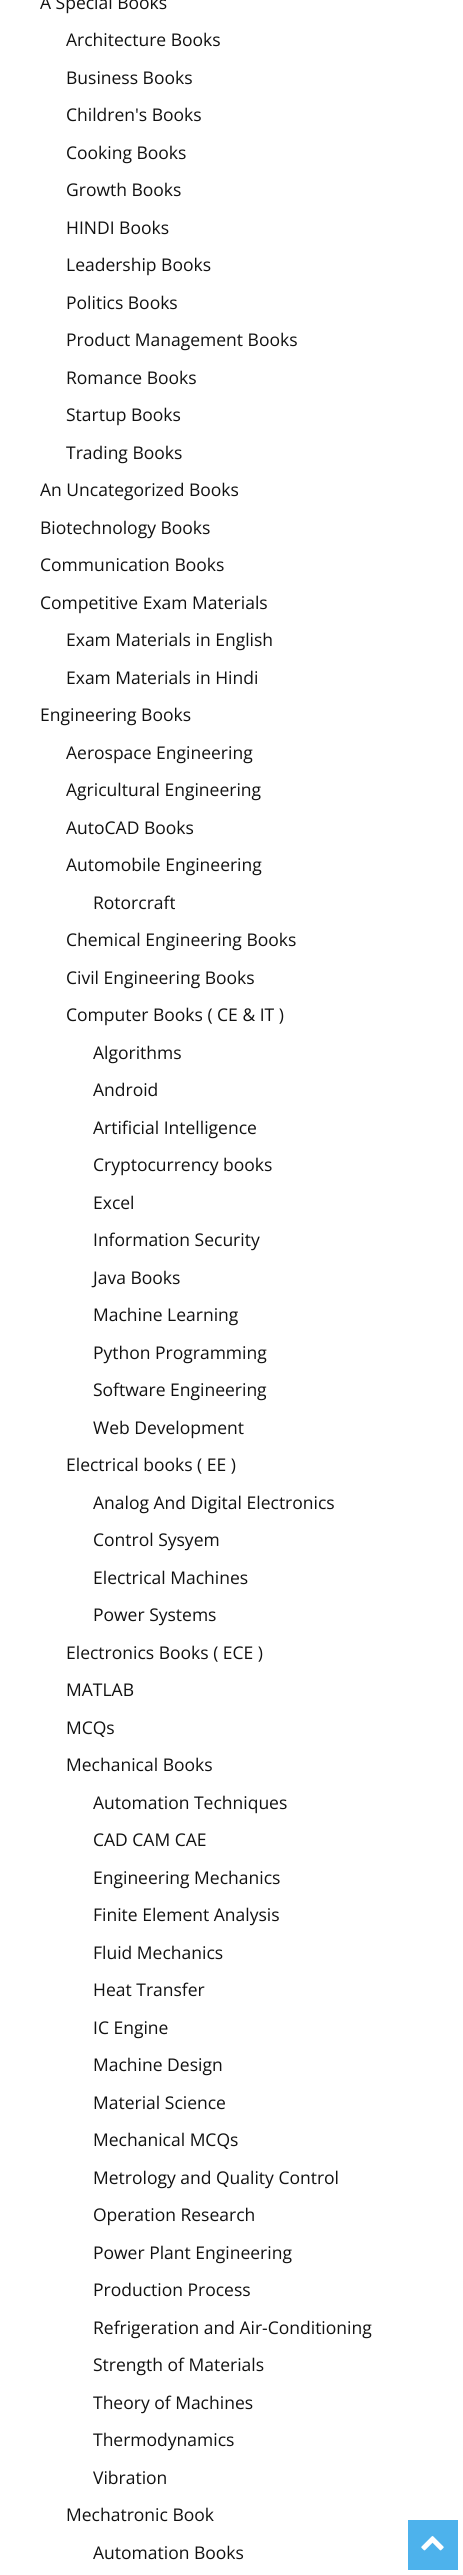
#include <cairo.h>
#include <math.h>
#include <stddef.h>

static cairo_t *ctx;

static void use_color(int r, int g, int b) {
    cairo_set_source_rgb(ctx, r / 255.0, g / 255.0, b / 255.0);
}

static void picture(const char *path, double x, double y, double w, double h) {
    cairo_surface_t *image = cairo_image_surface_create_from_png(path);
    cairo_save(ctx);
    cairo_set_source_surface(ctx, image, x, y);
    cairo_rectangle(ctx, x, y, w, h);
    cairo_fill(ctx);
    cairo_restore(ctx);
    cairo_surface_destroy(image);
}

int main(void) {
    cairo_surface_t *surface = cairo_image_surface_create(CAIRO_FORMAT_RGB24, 463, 2575);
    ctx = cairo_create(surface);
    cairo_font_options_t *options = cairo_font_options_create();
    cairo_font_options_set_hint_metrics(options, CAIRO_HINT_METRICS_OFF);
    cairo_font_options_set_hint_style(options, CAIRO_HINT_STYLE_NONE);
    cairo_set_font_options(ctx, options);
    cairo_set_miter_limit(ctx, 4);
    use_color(255, 255, 255);
    cairo_paint(ctx);
    cairo_select_font_face(ctx, "Open Sans", CAIRO_FONT_SLANT_NORMAL, CAIRO_FONT_WEIGHT_NORMAL);
    cairo_set_font_size(ctx, 17.5);
    use_color(17, 17, 17);
    cairo_move_to(ctx, 40, 9);
    cairo_show_text(ctx, "A Special Books");
    cairo_move_to(ctx, 66, 46);
    cairo_show_text(ctx, "Architecture Books");
    cairo_move_to(ctx, 66, 84);
    cairo_show_text(ctx, "Business Books");
    cairo_move_to(ctx, 66, 121);
    cairo_show_text(ctx, "Children's Books");
    cairo_move_to(ctx, 66, 159);
    cairo_show_text(ctx, "Cooking Books");
    cairo_move_to(ctx, 66, 196);
    cairo_show_text(ctx, "Growth Books");
    cairo_move_to(ctx, 66, 234);
    cairo_show_text(ctx, "HINDI Books");
    cairo_move_to(ctx, 66, 271);
    cairo_show_text(ctx, "Leadership Books");
    cairo_move_to(ctx, 66, 309);
    cairo_show_text(ctx, "Politics Books");
    cairo_move_to(ctx, 66, 346);
    cairo_show_text(ctx, "Product Management Books");
    cairo_move_to(ctx, 66, 384);
    cairo_show_text(ctx, "Romance Books");
    cairo_move_to(ctx, 66, 421);
    cairo_show_text(ctx, "Startup Books");
    cairo_move_to(ctx, 66, 459);
    cairo_show_text(ctx, "Trading Books");
    cairo_move_to(ctx, 40, 496);
    cairo_show_text(ctx, "An Uncategorized Books");
    cairo_move_to(ctx, 40, 534);
    cairo_show_text(ctx, "Biotechnology Books");
    cairo_move_to(ctx, 40, 571);
    cairo_show_text(ctx, "Communication Books");
    cairo_move_to(ctx, 40, 609);
    cairo_show_text(ctx, "Competitive Exam Materials");
    cairo_move_to(ctx, 66, 646);
    cairo_show_text(ctx, "Exam Materials in English");
    cairo_move_to(ctx, 66, 684);
    cairo_show_text(ctx, "Exam Materials in Hindi");
    cairo_move_to(ctx, 40, 721);
    cairo_show_text(ctx, "Engineering Books");
    cairo_move_to(ctx, 66, 759);
    cairo_show_text(ctx, "Aerospace Engineering");
    cairo_move_to(ctx, 66, 796);
    cairo_show_text(ctx, "Agricultural Engineering");
    cairo_move_to(ctx, 66, 834);
    cairo_show_text(ctx, "AutoCAD Books");
    cairo_move_to(ctx, 66, 871);
    cairo_show_text(ctx, "Automobile Engineering");
    cairo_move_to(ctx, 93, 909);
    cairo_show_text(ctx, "Rotorcraft");
    cairo_move_to(ctx, 66, 946);
    cairo_show_text(ctx, "Chemical Engineering Books");
    cairo_move_to(ctx, 66, 984);
    cairo_show_text(ctx, "Civil Engineering Books");
    cairo_move_to(ctx, 66, 1021);
    cairo_show_text(ctx, "Computer Books ( CE & IT )");
    cairo_move_to(ctx, 93, 1059);
    cairo_show_text(ctx, "Algorithms");
    cairo_move_to(ctx, 93, 1096);
    cairo_show_text(ctx, "Android");
    cairo_move_to(ctx, 93, 1134);
    cairo_show_text(ctx, "Artificial Intelligence");
    cairo_move_to(ctx, 93, 1171);
    cairo_show_text(ctx, "Cryptocurrency books");
    cairo_move_to(ctx, 93, 1209);
    cairo_show_text(ctx, "Excel");
    cairo_move_to(ctx, 93, 1246);
    cairo_show_text(ctx, "Information Security");
    cairo_move_to(ctx, 93, 1284);
    cairo_show_text(ctx, "Java Books");
    cairo_move_to(ctx, 93, 1321);
    cairo_show_text(ctx, "Machine Learning");
    cairo_move_to(ctx, 93, 1359);
    cairo_show_text(ctx, "Python Programming");
    cairo_move_to(ctx, 93, 1396);
    cairo_show_text(ctx, "Software Engineering");
    cairo_move_to(ctx, 93, 1434);
    cairo_show_text(ctx, "Web Development");
    cairo_move_to(ctx, 66, 1471);
    cairo_show_text(ctx, "Electrical books ( EE )");
    cairo_move_to(ctx, 93, 1509);
    cairo_show_text(ctx, "Analog And Digital Electronics");
    cairo_move_to(ctx, 93, 1546);
    cairo_show_text(ctx, "Control Sysyem");
    cairo_move_to(ctx, 93, 1584);
    cairo_show_text(ctx, "Electrical Machines");
    cairo_move_to(ctx, 93, 1621);
    cairo_show_text(ctx, "Power Systems");
    cairo_move_to(ctx, 66, 1659);
    cairo_show_text(ctx, "Electronics Books ( ECE )");
    cairo_move_to(ctx, 66, 1696);
    cairo_show_text(ctx, "MATLAB");
    cairo_move_to(ctx, 66, 1734);
    cairo_show_text(ctx, "MCQs");
    cairo_move_to(ctx, 66, 1771);
    cairo_show_text(ctx, "Mechanical Books");
    cairo_move_to(ctx, 93, 1809);
    cairo_show_text(ctx, "Automation Techniques");
    cairo_move_to(ctx, 93, 1846);
    cairo_show_text(ctx, "CAD CAM CAE");
    cairo_move_to(ctx, 93, 1884);
    cairo_show_text(ctx, "Engineering Mechanics");
    cairo_move_to(ctx, 93, 1921);
    cairo_show_text(ctx, "Finite Element Analysis");
    cairo_move_to(ctx, 93, 1959);
    cairo_show_text(ctx, "Fluid Mechanics");
    cairo_move_to(ctx, 93, 1996);
    cairo_show_text(ctx, "Heat Transfer");
    cairo_move_to(ctx, 93, 2034);
    cairo_show_text(ctx, "IC Engine");
    cairo_move_to(ctx, 93, 2071);
    cairo_show_text(ctx, "Machine Design");
    cairo_move_to(ctx, 93, 2109);
    cairo_show_text(ctx, "Material Science");
    cairo_move_to(ctx, 93, 2146);
    cairo_show_text(ctx, "Mechanical MCQs");
    cairo_move_to(ctx, 93, 2184);
    cairo_show_text(ctx, "Metrology and Quality Control");
    cairo_move_to(ctx, 93, 2221);
    cairo_show_text(ctx, "Operation Research");
    cairo_move_to(ctx, 93, 2259);
    cairo_show_text(ctx, "Power Plant Engineering");
    cairo_move_to(ctx, 93, 2296);
    cairo_show_text(ctx, "Production Process");
    cairo_move_to(ctx, 93, 2334);
    cairo_show_text(ctx, "Refrigeration and Air-Conditioning");
    cairo_move_to(ctx, 93, 2371);
    cairo_show_text(ctx, "Strength of Materials");
    cairo_move_to(ctx, 93, 2409);
    cairo_show_text(ctx, "Theory of Machines");
    cairo_move_to(ctx, 93, 2446);
    cairo_show_text(ctx, "Thermodynamics");
    cairo_move_to(ctx, 93, 2484);
    cairo_show_text(ctx, "Vibration");
    cairo_move_to(ctx, 66, 2521);
    cairo_show_text(ctx, "Mechatronic Book");
    cairo_move_to(ctx, 93, 2559);
    cairo_show_text(ctx, "Automation Books");
    use_color(77, 178, 236);
    cairo_rectangle(ctx, 408, 2520, 50, 50);
    cairo_fill(ctx);
    picture("img1.png", 421, 2536, 23, 15);
    cairo_surface_write_to_png(surface, "result.png");
    cairo_font_options_destroy(options);
    cairo_destroy(ctx);
    cairo_surface_destroy(surface);
    return 0;
}
